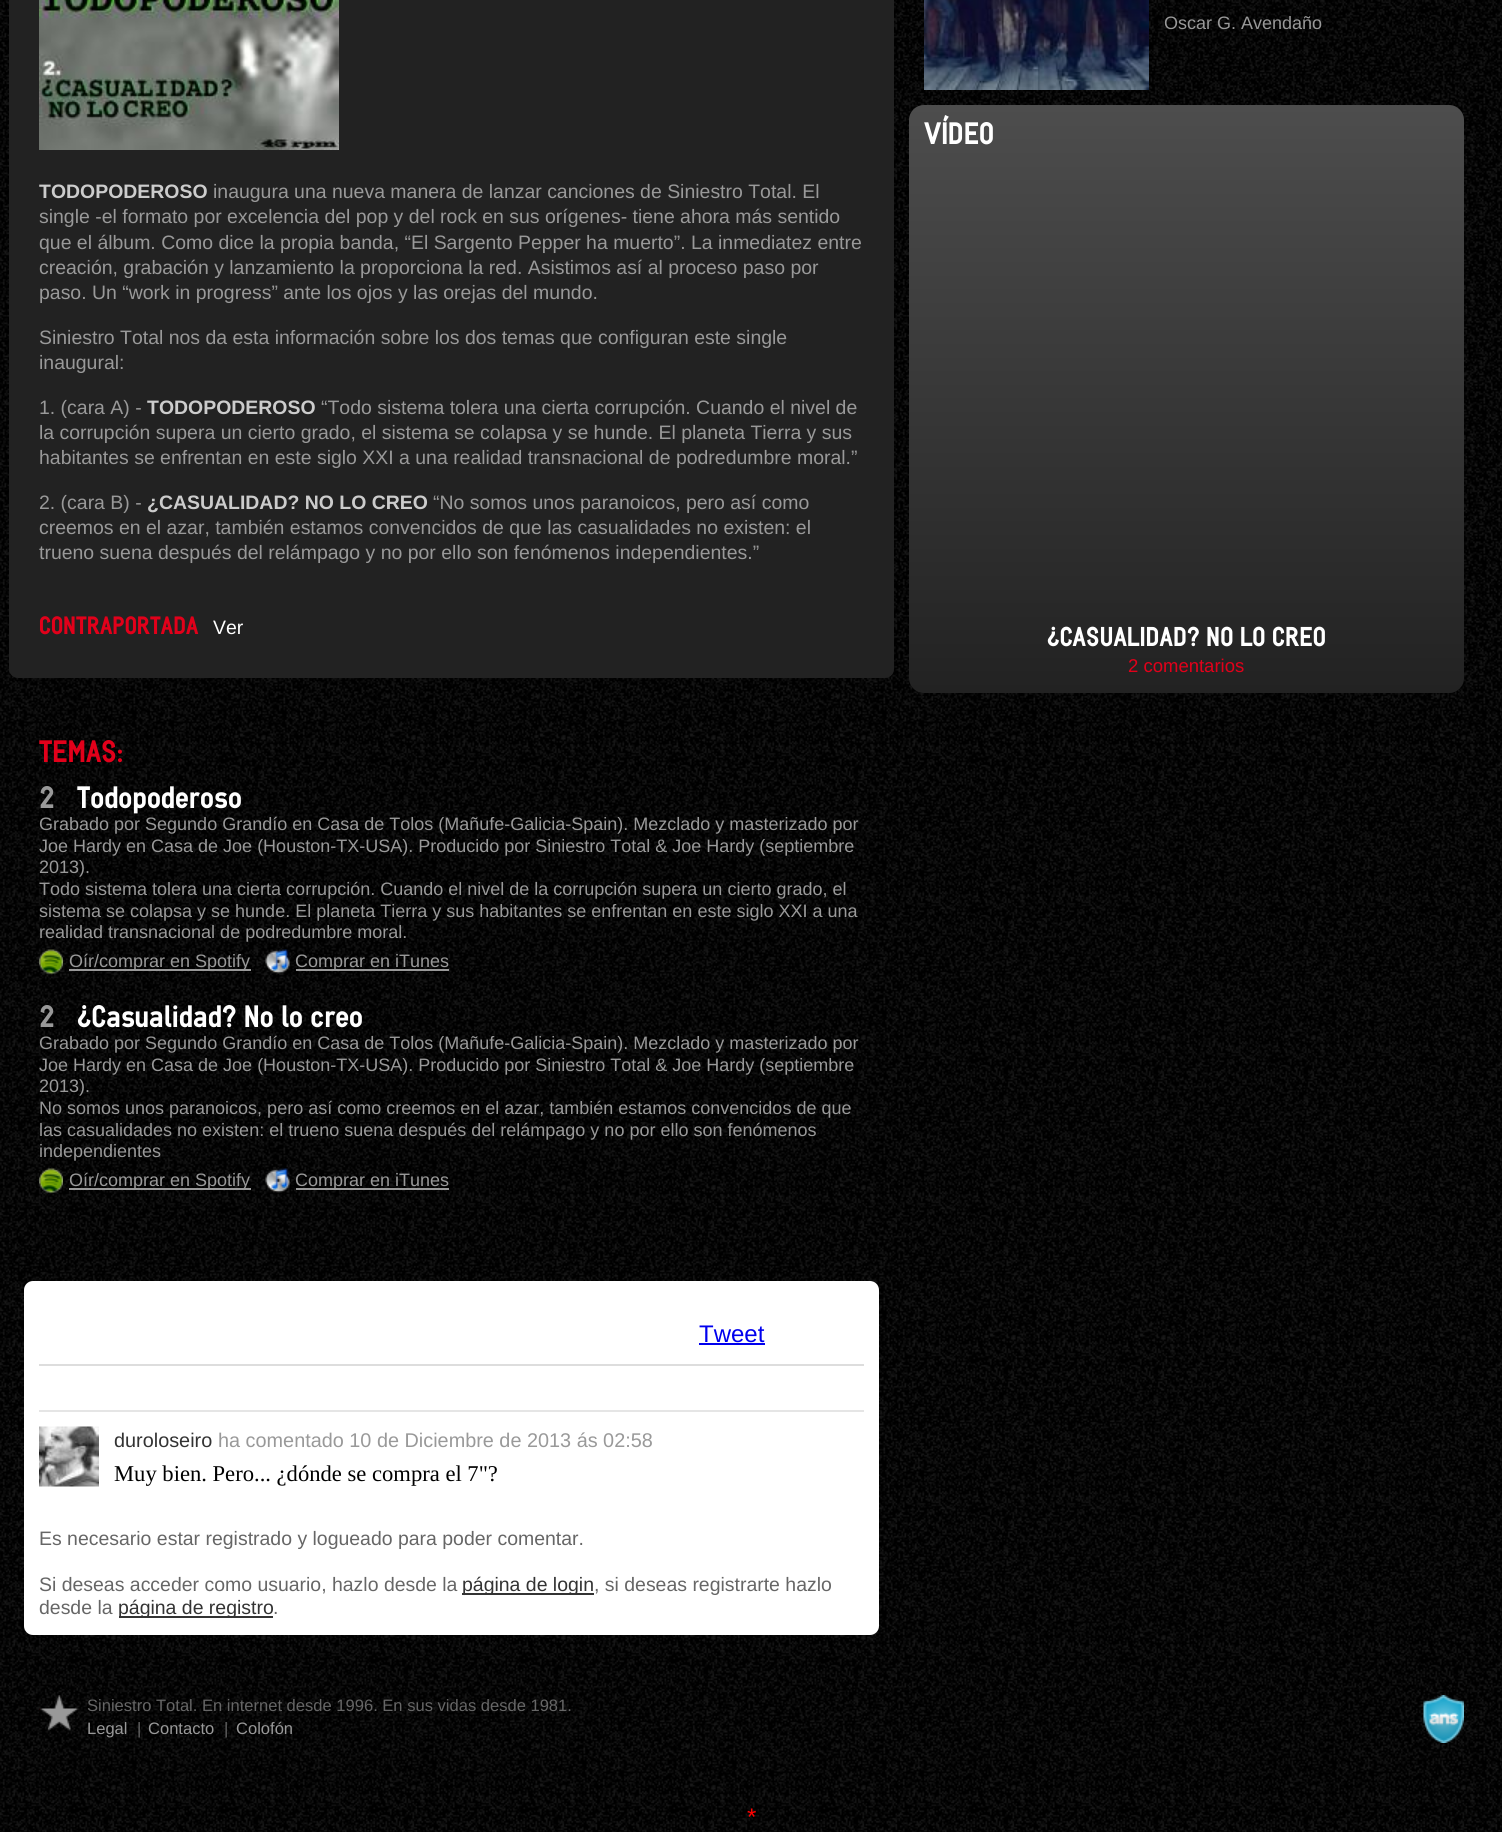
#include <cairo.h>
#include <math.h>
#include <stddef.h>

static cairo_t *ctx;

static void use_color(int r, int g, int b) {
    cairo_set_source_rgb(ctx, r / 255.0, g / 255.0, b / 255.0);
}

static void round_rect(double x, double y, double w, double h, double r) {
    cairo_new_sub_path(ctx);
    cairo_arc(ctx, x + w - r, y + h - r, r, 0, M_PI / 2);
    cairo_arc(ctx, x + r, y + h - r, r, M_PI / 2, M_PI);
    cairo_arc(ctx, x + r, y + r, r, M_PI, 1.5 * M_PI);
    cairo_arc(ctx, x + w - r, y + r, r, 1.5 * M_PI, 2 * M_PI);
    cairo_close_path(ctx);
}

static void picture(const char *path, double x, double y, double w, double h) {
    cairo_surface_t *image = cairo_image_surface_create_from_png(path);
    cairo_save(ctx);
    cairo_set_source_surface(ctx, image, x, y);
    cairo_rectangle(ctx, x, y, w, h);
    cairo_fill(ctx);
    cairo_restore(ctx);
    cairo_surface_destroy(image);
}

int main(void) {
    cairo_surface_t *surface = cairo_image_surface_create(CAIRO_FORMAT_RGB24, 1502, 1832);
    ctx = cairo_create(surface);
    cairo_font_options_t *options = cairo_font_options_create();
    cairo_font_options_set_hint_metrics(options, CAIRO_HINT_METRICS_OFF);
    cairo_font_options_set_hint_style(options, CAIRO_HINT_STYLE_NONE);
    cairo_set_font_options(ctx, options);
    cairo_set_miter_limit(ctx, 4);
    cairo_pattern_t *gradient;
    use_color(255, 255, 255);
    cairo_paint(ctx);
    picture("img1.png", 0, 0, 1502, 1832);
    use_color(34, 34, 34);
    round_rect(9, -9, 885, 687, 9);
    cairo_fill(ctx);
    picture("img2.png", 39, 0, 300, 150);
    cairo_select_font_face(ctx, "Liberation Sans", CAIRO_FONT_SLANT_NORMAL, CAIRO_FONT_WEIGHT_BOLD);
    cairo_set_font_size(ctx, 19.45);
    use_color(204, 204, 204);
    cairo_move_to(ctx, 39, 198);
    cairo_show_text(ctx, "TODOPODEROSO");
    cairo_select_font_face(ctx, "Liberation Sans", CAIRO_FONT_SLANT_NORMAL, CAIRO_FONT_WEIGHT_NORMAL);
    use_color(153, 153, 153);
    cairo_move_to(ctx, 213, 198);
    cairo_show_text(ctx, "inaugura una nueva manera de lanzar canciones de Siniestro Total. El");
    cairo_move_to(ctx, 39, 223);
    cairo_show_text(ctx, "single -el formato por excelencia del pop y del rock en sus orígenes- tiene ahora más sentido");
    cairo_move_to(ctx, 39, 249);
    cairo_show_text(ctx, "que el álbum. Como dice la propia banda, “El Sargento Pepper ha muerto”. La inmediatez entre");
    cairo_move_to(ctx, 39, 274);
    cairo_show_text(ctx, "creación, grabación y lanzamiento la proporciona la red. Asistimos así al proceso paso por");
    cairo_move_to(ctx, 39, 299);
    cairo_show_text(ctx, "paso. Un “work in progress” ante los ojos y las orejas del mundo.");
    cairo_move_to(ctx, 39, 344);
    cairo_show_text(ctx, "Siniestro Total nos da esta información sobre los dos temas que configuran este single");
    cairo_move_to(ctx, 39, 369);
    cairo_show_text(ctx, "inaugural:");
    cairo_move_to(ctx, 39, 414);
    cairo_show_text(ctx, "1. (cara A) -");
    cairo_select_font_face(ctx, "Liberation Sans", CAIRO_FONT_SLANT_NORMAL, CAIRO_FONT_WEIGHT_BOLD);
    use_color(204, 204, 204);
    cairo_move_to(ctx, 147, 414);
    cairo_show_text(ctx, "TODOPODEROSO");
    cairo_select_font_face(ctx, "Liberation Sans", CAIRO_FONT_SLANT_NORMAL, CAIRO_FONT_WEIGHT_NORMAL);
    use_color(153, 153, 153);
    cairo_move_to(ctx, 321, 414);
    cairo_show_text(ctx, "“Todo sistema tolera una cierta corrupción. Cuando el nivel de");
    cairo_move_to(ctx, 39, 439);
    cairo_show_text(ctx, "la corrupción supera un cierto grado, el sistema se colapsa y se hunde. El planeta Tierra y sus");
    cairo_move_to(ctx, 39, 464);
    cairo_show_text(ctx, "habitantes se enfrentan en este siglo XXI a una realidad transnacional de podredumbre moral.”");
    cairo_move_to(ctx, 39, 509);
    cairo_show_text(ctx, "2. (cara B) -");
    cairo_select_font_face(ctx, "Liberation Sans", CAIRO_FONT_SLANT_NORMAL, CAIRO_FONT_WEIGHT_BOLD);
    use_color(204, 204, 204);
    cairo_move_to(ctx, 147, 509);
    cairo_show_text(ctx, "¿CASUALIDAD? NO LO CREO");
    cairo_select_font_face(ctx, "Liberation Sans", CAIRO_FONT_SLANT_NORMAL, CAIRO_FONT_WEIGHT_NORMAL);
    use_color(153, 153, 153);
    cairo_move_to(ctx, 433, 509);
    cairo_show_text(ctx, "“No somos unos paranoicos, pero así como");
    cairo_move_to(ctx, 39, 534);
    cairo_show_text(ctx, "creemos en el azar, también estamos convencidos de que las casualidades no existen: el");
    cairo_move_to(ctx, 39, 559);
    cairo_show_text(ctx, "trueno suena después del relámpago y no por ello son fenómenos independientes.”");
    cairo_select_font_face(ctx, "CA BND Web", CAIRO_FONT_SLANT_NORMAL, CAIRO_FONT_WEIGHT_BOLD);
    cairo_set_font_size(ctx, 24.5);
    use_color(226, 0, 26);
    cairo_move_to(ctx, 39, 634);
    cairo_show_text(ctx, "CONTRAPORTADA");
    cairo_select_font_face(ctx, "Liberation Sans", CAIRO_FONT_SLANT_NORMAL, CAIRO_FONT_WEIGHT_NORMAL);
    cairo_set_font_size(ctx, 19.45);
    use_color(255, 255, 255);
    cairo_move_to(ctx, 213, 634);
    cairo_show_text(ctx, "Ver");
    cairo_select_font_face(ctx, "CA BND Web", CAIRO_FONT_SLANT_NORMAL, CAIRO_FONT_WEIGHT_BOLD);
    cairo_set_font_size(ctx, 30.25);
    use_color(226, 0, 26);
    cairo_move_to(ctx, 39, 762);
    cairo_show_text(ctx, "TEMAS:");
    use_color(153, 153, 153);
    cairo_move_to(ctx, 39, 808);
    cairo_show_text(ctx, "2");
    use_color(255, 255, 255);
    cairo_move_to(ctx, 77, 808);
    cairo_show_text(ctx, "Todopoderoso");
    cairo_select_font_face(ctx, "Liberation Sans", CAIRO_FONT_SLANT_NORMAL, CAIRO_FONT_WEIGHT_NORMAL);
    cairo_set_font_size(ctx, 18);
    use_color(153, 153, 153);
    cairo_move_to(ctx, 39, 830);
    cairo_show_text(ctx, "Grabado por Segundo Grandío en Casa de Tolos (Mañufe-Galicia-Spain). Mezclado y masterizado por");
    cairo_move_to(ctx, 39, 852);
    cairo_show_text(ctx, "Joe Hardy en Casa de Joe (Houston-TX-USA). Producido por Siniestro Total & Joe Hardy (septiembre");
    cairo_move_to(ctx, 39, 873);
    cairo_show_text(ctx, "2013).");
    cairo_move_to(ctx, 39, 895);
    cairo_show_text(ctx, "Todo sistema tolera una cierta corrupción. Cuando el nivel de la corrupción supera un cierto grado, el");
    cairo_move_to(ctx, 39, 917);
    cairo_show_text(ctx, "sistema se colapsa y se hunde. El planeta Tierra y sus habitantes se enfrentan en este siglo XXI a una");
    cairo_move_to(ctx, 39, 938);
    cairo_show_text(ctx, "realidad transnacional de podredumbre moral.");
    picture("img3.png", 39, 949, 24, 25);
    cairo_rectangle(ctx, 69, 969, 182, 2);
    cairo_fill(ctx);
    cairo_move_to(ctx, 69, 967);
    cairo_show_text(ctx, "Oír/comprar en Spotify");
    picture("img4.png", 265, 949, 25, 25);
    cairo_rectangle(ctx, 296, 969, 153, 2);
    cairo_fill(ctx);
    cairo_move_to(ctx, 295, 967);
    cairo_show_text(ctx, "Comprar en iTunes");
    cairo_select_font_face(ctx, "CA BND Web", CAIRO_FONT_SLANT_NORMAL, CAIRO_FONT_WEIGHT_BOLD);
    cairo_set_font_size(ctx, 30.25);
    cairo_move_to(ctx, 39, 1027);
    cairo_show_text(ctx, "2");
    use_color(255, 255, 255);
    cairo_move_to(ctx, 77, 1027);
    cairo_show_text(ctx, "¿Casualidad? No lo creo");
    cairo_select_font_face(ctx, "Liberation Sans", CAIRO_FONT_SLANT_NORMAL, CAIRO_FONT_WEIGHT_NORMAL);
    cairo_set_font_size(ctx, 18);
    use_color(153, 153, 153);
    cairo_move_to(ctx, 39, 1049);
    cairo_show_text(ctx, "Grabado por Segundo Grandío en Casa de Tolos (Mañufe-Galicia-Spain). Mezclado y masterizado por");
    cairo_move_to(ctx, 39, 1071);
    cairo_show_text(ctx, "Joe Hardy en Casa de Joe (Houston-TX-USA). Producido por Siniestro Total & Joe Hardy (septiembre");
    cairo_move_to(ctx, 39, 1092);
    cairo_show_text(ctx, "2013).");
    cairo_move_to(ctx, 39, 1114);
    cairo_show_text(ctx, "No somos unos paranoicos, pero así como creemos en el azar, también estamos convencidos de que");
    cairo_move_to(ctx, 39, 1136);
    cairo_show_text(ctx, "las casualidades no existen: el trueno suena después del relámpago y no por ello son fenómenos");
    cairo_move_to(ctx, 39, 1157);
    cairo_show_text(ctx, "independientes");
    picture("img5.png", 39, 1168, 24, 25);
    cairo_rectangle(ctx, 69, 1188, 182, 2);
    cairo_fill(ctx);
    cairo_move_to(ctx, 69, 1186);
    cairo_show_text(ctx, "Oír/comprar en Spotify");
    picture("img6.png", 265, 1168, 25, 25);
    cairo_rectangle(ctx, 296, 1188, 153, 2);
    cairo_fill(ctx);
    cairo_move_to(ctx, 295, 1186);
    cairo_show_text(ctx, "Comprar en iTunes");
    use_color(255, 255, 255);
    round_rect(24, 1281, 855, 354, 9);
    cairo_fill(ctx);
    use_color(221, 221, 221);
    cairo_rectangle(ctx, 39, 1364, 825, 2);
    cairo_fill(ctx);
    cairo_set_font_size(ctx, 24);
    use_color(0, 0, 238);
    cairo_move_to(ctx, 699, 1342);
    cairo_show_text(ctx, "Tweet");
    cairo_rectangle(ctx, 699, 1343, 66, 2);
    cairo_fill(ctx);
    use_color(229, 229, 229);
    cairo_rectangle(ctx, 39, 1410, 825, 2);
    cairo_fill(ctx);
    picture("img7.png", 39, 1426, 60, 61);
    cairo_set_font_size(ctx, 19.85);
    use_color(51, 51, 51);
    cairo_move_to(ctx, 114, 1447);
    cairo_show_text(ctx, "duroloseiro");
    use_color(153, 153, 153);
    cairo_move_to(ctx, 218, 1447);
    cairo_show_text(ctx, "ha comentado 10 de Diciembre de 2013 ás 02:58");
    cairo_select_font_face(ctx, "Liberation Serif", CAIRO_FONT_SLANT_NORMAL, CAIRO_FONT_WEIGHT_NORMAL);
    cairo_set_font_size(ctx, 22.6);
    use_color(0, 0, 0);
    cairo_move_to(ctx, 114, 1481);
    cairo_show_text(ctx, "Muy bien. Pero... ¿dónde se compra el 7\"?");
    cairo_select_font_face(ctx, "Liberation Sans", CAIRO_FONT_SLANT_NORMAL, CAIRO_FONT_WEIGHT_NORMAL);
    cairo_set_font_size(ctx, 19.45);
    use_color(102, 102, 102);
    cairo_move_to(ctx, 39, 1545);
    cairo_show_text(ctx, "Es necesario estar registrado y logueado para poder comentar.");
    cairo_move_to(ctx, 39, 1591);
    cairo_show_text(ctx, "Si deseas acceder como usuario, hazlo desde la");
    use_color(51, 51, 51);
    cairo_rectangle(ctx, 462, 1593, 132, 2);
    cairo_fill(ctx);
    cairo_move_to(ctx, 462, 1591);
    cairo_show_text(ctx, "página de login");
    use_color(102, 102, 102);
    cairo_move_to(ctx, 594, 1591);
    cairo_show_text(ctx, ", si deseas registrarte hazlo");
    cairo_move_to(ctx, 39, 1614);
    cairo_show_text(ctx, "desde la");
    use_color(51, 51, 51);
    cairo_rectangle(ctx, 119, 1616, 154, 2);
    cairo_fill(ctx);
    cairo_move_to(ctx, 118, 1614);
    cairo_show_text(ctx, "página de registro");
    use_color(102, 102, 102);
    cairo_move_to(ctx, 273, 1614);
    cairo_show_text(ctx, ".");
    picture("img8.png", 924, 0, 225, 90);
    cairo_set_font_size(ctx, 18);
    use_color(153, 153, 153);
    cairo_move_to(ctx, 1164, 29);
    cairo_show_text(ctx, "Oscar G. Avendaño");
    gradient = cairo_pattern_create_linear(909, 105, 909, 693);
    cairo_pattern_add_color_stop_rgba(gradient, 0, 0.302, 0.302, 0.302, 1);
    cairo_pattern_add_color_stop_rgba(gradient, 1, 0.133, 0.133, 0.133, 1);
    cairo_set_source(ctx, gradient);
    cairo_pattern_destroy(gradient);
    round_rect(909, 105, 555, 588, 15);
    cairo_fill(ctx);
    cairo_select_font_face(ctx, "CA BND Web", CAIRO_FONT_SLANT_NORMAL, CAIRO_FONT_WEIGHT_BOLD);
    cairo_set_font_size(ctx, 30.25);
    use_color(255, 255, 255);
    cairo_move_to(ctx, 924, 144);
    cairo_show_text(ctx, "VÍDEO");
    cairo_set_font_size(ctx, 26.6);
    cairo_move_to(ctx, 1047, 646);
    cairo_show_text(ctx, "¿CASUALIDAD? NO LO CREO");
    cairo_select_font_face(ctx, "Liberation Sans", CAIRO_FONT_SLANT_NORMAL, CAIRO_FONT_WEIGHT_NORMAL);
    cairo_set_font_size(ctx, 18.5);
    use_color(226, 0, 26);
    cairo_move_to(ctx, 1128, 672);
    cairo_show_text(ctx, "2 comentarios");
    picture("img9.png", 39, 1695, 40, 36);
    cairo_set_font_size(ctx, 16.55);
    use_color(102, 102, 102);
    cairo_move_to(ctx, 87, 1711);
    cairo_show_text(ctx, "Siniestro Total. En internet desde 1996. En sus vidas desde 1981.");
    use_color(153, 153, 153);
    cairo_move_to(ctx, 87, 1734);
    cairo_show_text(ctx, "Legal");
    use_color(102, 102, 102);
    cairo_move_to(ctx, 137, 1734);
    cairo_show_text(ctx, "|");
    use_color(153, 153, 153);
    cairo_move_to(ctx, 148, 1734);
    cairo_show_text(ctx, "Contacto");
    use_color(102, 102, 102);
    cairo_move_to(ctx, 224, 1734);
    cairo_show_text(ctx, "|");
    use_color(153, 153, 153);
    cairo_move_to(ctx, 236, 1734);
    cairo_show_text(ctx, "Colofón");
    picture("img10.png", 1423, 1695, 41, 48);
    cairo_set_font_size(ctx, 24);
    use_color(255, 0, 0);
    cairo_move_to(ctx, 747, 1825);
    cairo_show_text(ctx, "*");
    cairo_surface_write_to_png(surface, "result.png");
    cairo_font_options_destroy(options);
    cairo_destroy(ctx);
    cairo_surface_destroy(surface);
    return 0;
}
